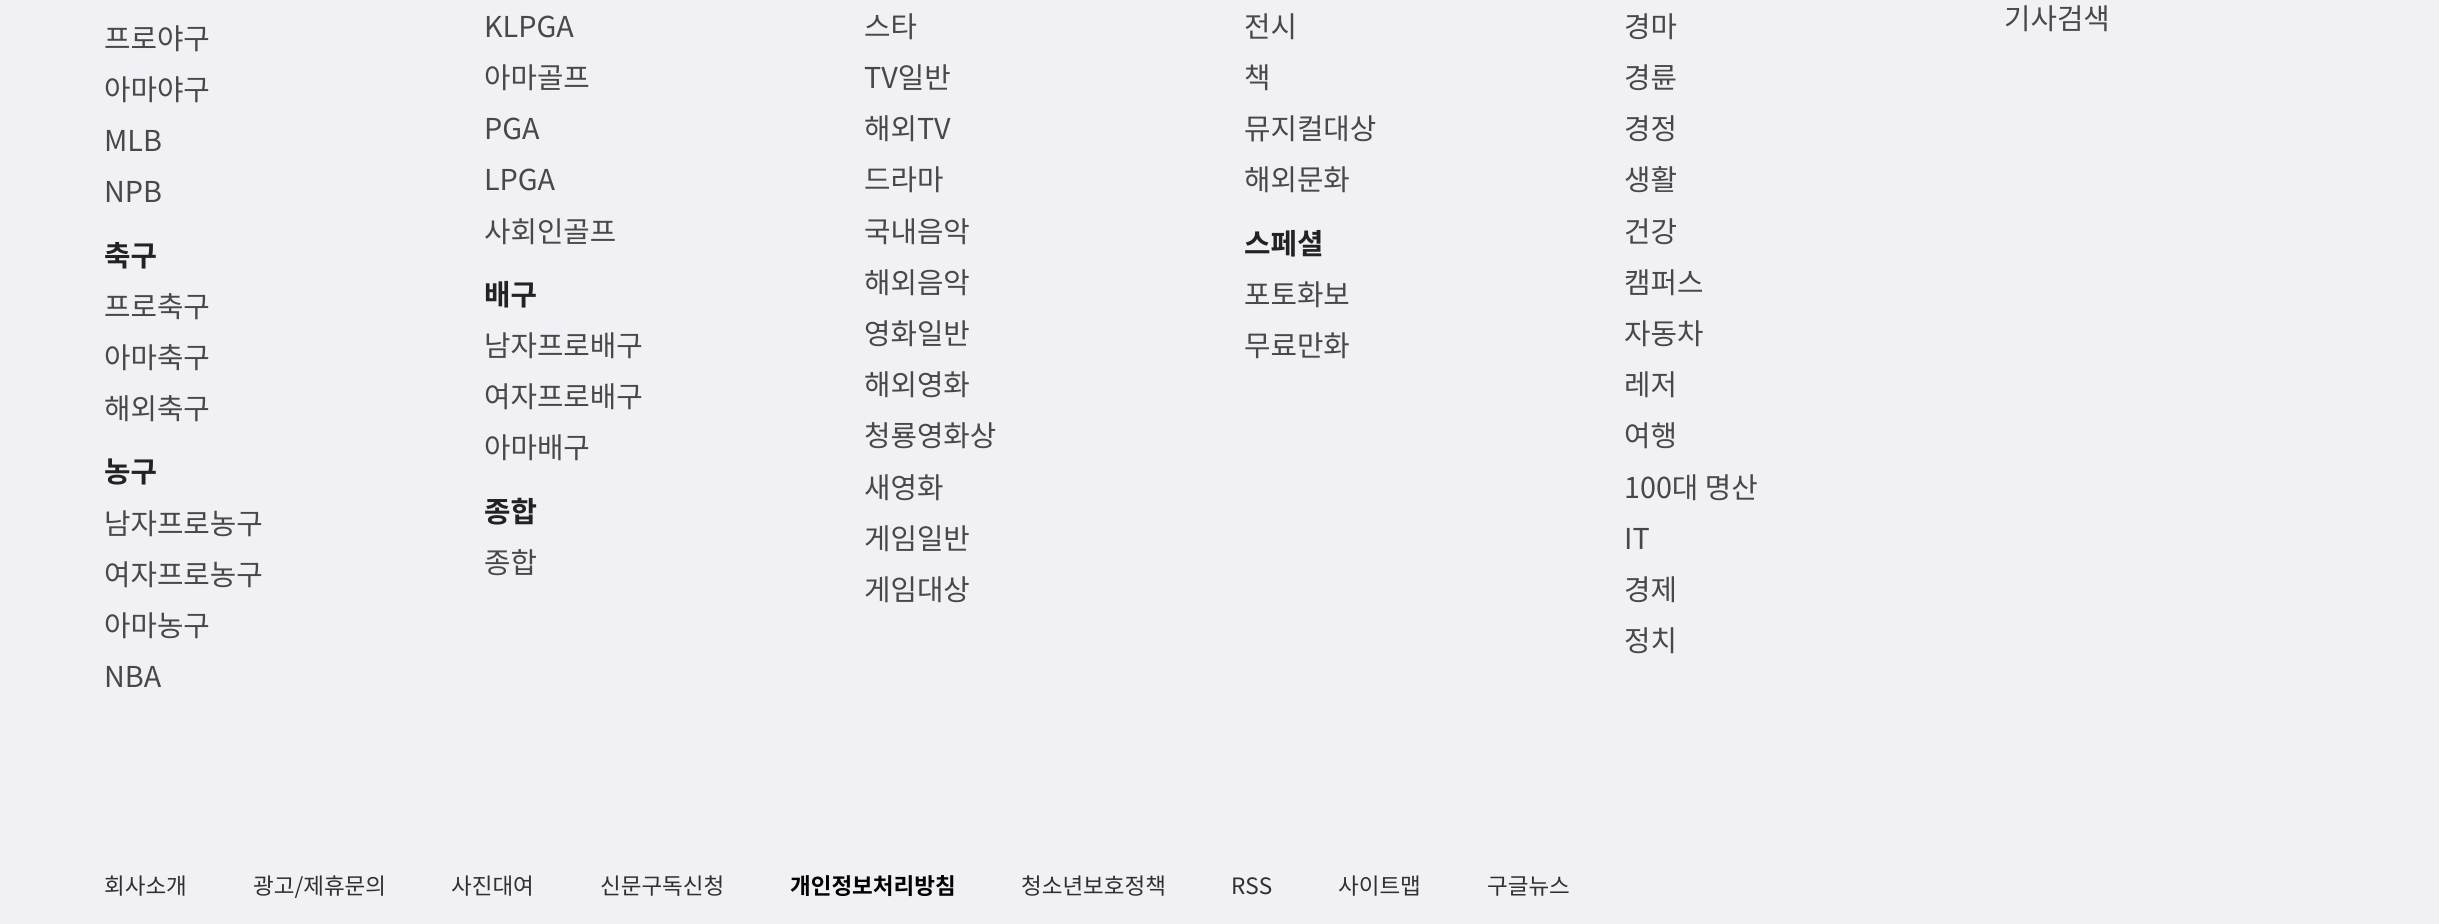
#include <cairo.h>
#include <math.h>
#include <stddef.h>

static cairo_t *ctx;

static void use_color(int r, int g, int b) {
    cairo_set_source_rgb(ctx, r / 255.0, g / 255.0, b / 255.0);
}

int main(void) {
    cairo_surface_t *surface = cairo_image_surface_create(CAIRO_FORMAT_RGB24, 2439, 924);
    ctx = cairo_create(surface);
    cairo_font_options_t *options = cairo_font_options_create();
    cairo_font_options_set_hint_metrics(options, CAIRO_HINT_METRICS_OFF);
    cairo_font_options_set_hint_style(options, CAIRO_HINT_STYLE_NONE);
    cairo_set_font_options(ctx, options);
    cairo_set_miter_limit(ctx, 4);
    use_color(240, 240, 245);
    cairo_paint(ctx);
    cairo_select_font_face(ctx, "Noto Sans KR", CAIRO_FONT_SLANT_NORMAL, CAIRO_FONT_WEIGHT_NORMAL);
    cairo_set_font_size(ctx, 28.75);
    use_color(72, 72, 74);
    cairo_move_to(ctx, 104, 49);
    cairo_show_text(ctx, "프로야구");
    cairo_move_to(ctx, 104, 100);
    cairo_show_text(ctx, "아마야구");
    cairo_move_to(ctx, 104, 151);
    cairo_show_text(ctx, "MLB");
    cairo_move_to(ctx, 104, 202);
    cairo_show_text(ctx, "NPB");
    cairo_select_font_face(ctx, "Noto Sans KR", CAIRO_FONT_SLANT_NORMAL, CAIRO_FONT_WEIGHT_BOLD);
    use_color(34, 34, 34);
    cairo_move_to(ctx, 104, 266);
    cairo_show_text(ctx, "축구");
    cairo_select_font_face(ctx, "Noto Sans KR", CAIRO_FONT_SLANT_NORMAL, CAIRO_FONT_WEIGHT_NORMAL);
    use_color(72, 72, 74);
    cairo_move_to(ctx, 104, 317);
    cairo_show_text(ctx, "프로축구");
    cairo_move_to(ctx, 104, 368);
    cairo_show_text(ctx, "아마축구");
    cairo_move_to(ctx, 104, 419);
    cairo_show_text(ctx, "해외축구");
    cairo_select_font_face(ctx, "Noto Sans KR", CAIRO_FONT_SLANT_NORMAL, CAIRO_FONT_WEIGHT_BOLD);
    use_color(34, 34, 34);
    cairo_move_to(ctx, 104, 482);
    cairo_show_text(ctx, "농구");
    cairo_select_font_face(ctx, "Noto Sans KR", CAIRO_FONT_SLANT_NORMAL, CAIRO_FONT_WEIGHT_NORMAL);
    use_color(72, 72, 74);
    cairo_move_to(ctx, 104, 534);
    cairo_show_text(ctx, "남자프로농구");
    cairo_move_to(ctx, 104, 585);
    cairo_show_text(ctx, "여자프로농구");
    cairo_move_to(ctx, 104, 636);
    cairo_show_text(ctx, "아마농구");
    cairo_move_to(ctx, 104, 687);
    cairo_show_text(ctx, "NBA");
    cairo_move_to(ctx, 484, 37);
    cairo_show_text(ctx, "KLPGA");
    cairo_move_to(ctx, 484, 88);
    cairo_show_text(ctx, "아마골프");
    cairo_move_to(ctx, 484, 139);
    cairo_show_text(ctx, "PGA");
    cairo_move_to(ctx, 484, 190);
    cairo_show_text(ctx, "LPGA");
    cairo_move_to(ctx, 484, 242);
    cairo_show_text(ctx, "사회인골프");
    cairo_select_font_face(ctx, "Noto Sans KR", CAIRO_FONT_SLANT_NORMAL, CAIRO_FONT_WEIGHT_BOLD);
    use_color(34, 34, 34);
    cairo_move_to(ctx, 484, 305);
    cairo_show_text(ctx, "배구");
    cairo_select_font_face(ctx, "Noto Sans KR", CAIRO_FONT_SLANT_NORMAL, CAIRO_FONT_WEIGHT_NORMAL);
    use_color(72, 72, 74);
    cairo_move_to(ctx, 484, 356);
    cairo_show_text(ctx, "남자프로배구");
    cairo_move_to(ctx, 484, 407);
    cairo_show_text(ctx, "여자프로배구");
    cairo_move_to(ctx, 484, 458);
    cairo_show_text(ctx, "아마배구");
    cairo_select_font_face(ctx, "Noto Sans KR", CAIRO_FONT_SLANT_NORMAL, CAIRO_FONT_WEIGHT_BOLD);
    use_color(34, 34, 34);
    cairo_move_to(ctx, 484, 522);
    cairo_show_text(ctx, "종합");
    cairo_select_font_face(ctx, "Noto Sans KR", CAIRO_FONT_SLANT_NORMAL, CAIRO_FONT_WEIGHT_NORMAL);
    use_color(72, 72, 74);
    cairo_move_to(ctx, 484, 573);
    cairo_show_text(ctx, "종합");
    cairo_move_to(ctx, 864, 37);
    cairo_show_text(ctx, "스타");
    cairo_move_to(ctx, 864, 88);
    cairo_show_text(ctx, "TV일반");
    cairo_move_to(ctx, 864, 139);
    cairo_show_text(ctx, "해외TV");
    cairo_move_to(ctx, 864, 190);
    cairo_show_text(ctx, "드라마");
    cairo_move_to(ctx, 864, 242);
    cairo_show_text(ctx, "국내음악");
    cairo_move_to(ctx, 864, 293);
    cairo_show_text(ctx, "해외음악");
    cairo_move_to(ctx, 864, 344);
    cairo_show_text(ctx, "영화일반");
    cairo_move_to(ctx, 864, 395);
    cairo_show_text(ctx, "해외영화");
    cairo_move_to(ctx, 864, 446);
    cairo_show_text(ctx, "청룡영화상");
    cairo_move_to(ctx, 864, 498);
    cairo_show_text(ctx, "새영화");
    cairo_move_to(ctx, 864, 549);
    cairo_show_text(ctx, "게임일반");
    cairo_move_to(ctx, 864, 600);
    cairo_show_text(ctx, "게임대상");
    cairo_move_to(ctx, 1244, 37);
    cairo_show_text(ctx, "전시");
    cairo_move_to(ctx, 1244, 88);
    cairo_show_text(ctx, "책");
    cairo_move_to(ctx, 1244, 139);
    cairo_show_text(ctx, "뮤지컬대상");
    cairo_move_to(ctx, 1244, 190);
    cairo_show_text(ctx, "해외문화");
    cairo_select_font_face(ctx, "Noto Sans KR", CAIRO_FONT_SLANT_NORMAL, CAIRO_FONT_WEIGHT_BOLD);
    use_color(34, 34, 34);
    cairo_move_to(ctx, 1244, 254);
    cairo_show_text(ctx, "스페셜");
    cairo_select_font_face(ctx, "Noto Sans KR", CAIRO_FONT_SLANT_NORMAL, CAIRO_FONT_WEIGHT_NORMAL);
    use_color(72, 72, 74);
    cairo_move_to(ctx, 1244, 305);
    cairo_show_text(ctx, "포토화보");
    cairo_move_to(ctx, 1244, 356);
    cairo_show_text(ctx, "무료만화");
    cairo_move_to(ctx, 1624, 37);
    cairo_show_text(ctx, "경마");
    cairo_move_to(ctx, 1624, 88);
    cairo_show_text(ctx, "경륜");
    cairo_move_to(ctx, 1624, 139);
    cairo_show_text(ctx, "경정");
    cairo_move_to(ctx, 1624, 190);
    cairo_show_text(ctx, "생활");
    cairo_move_to(ctx, 1624, 242);
    cairo_show_text(ctx, "건강");
    cairo_move_to(ctx, 1624, 293);
    cairo_show_text(ctx, "캠퍼스");
    cairo_move_to(ctx, 1624, 344);
    cairo_show_text(ctx, "자동차");
    cairo_move_to(ctx, 1624, 395);
    cairo_show_text(ctx, "레저");
    cairo_move_to(ctx, 1624, 446);
    cairo_show_text(ctx, "여행");
    cairo_move_to(ctx, 1624, 498);
    cairo_show_text(ctx, "100대 명산");
    cairo_move_to(ctx, 1624, 549);
    cairo_show_text(ctx, "IT");
    cairo_move_to(ctx, 1624, 600);
    cairo_show_text(ctx, "경제");
    cairo_move_to(ctx, 1624, 651);
    cairo_show_text(ctx, "정치");
    cairo_move_to(ctx, 2004, 29);
    cairo_show_text(ctx, "기사검색");
    cairo_set_font_size(ctx, 22.5);
    use_color(48, 48, 49);
    cairo_move_to(ctx, 104, 894);
    cairo_show_text(ctx, "회사소개");
    cairo_move_to(ctx, 253, 894);
    cairo_show_text(ctx, "광고/제휴문의");
    cairo_move_to(ctx, 451, 894);
    cairo_show_text(ctx, "사진대여");
    cairo_move_to(ctx, 600, 894);
    cairo_show_text(ctx, "신문구독신청");
    cairo_select_font_face(ctx, "Noto Sans KR", CAIRO_FONT_SLANT_NORMAL, CAIRO_FONT_WEIGHT_BOLD);
    use_color(0, 0, 0);
    cairo_move_to(ctx, 790, 894);
    cairo_show_text(ctx, "개인정보처리방침");
    cairo_select_font_face(ctx, "Noto Sans KR", CAIRO_FONT_SLANT_NORMAL, CAIRO_FONT_WEIGHT_NORMAL);
    use_color(48, 48, 49);
    cairo_move_to(ctx, 1021, 894);
    cairo_show_text(ctx, "청소년보호정책");
    cairo_move_to(ctx, 1231, 894);
    cairo_show_text(ctx, "RSS");
    cairo_move_to(ctx, 1338, 894);
    cairo_show_text(ctx, "사이트맵");
    cairo_move_to(ctx, 1487, 894);
    cairo_show_text(ctx, "구글뉴스");
    cairo_surface_write_to_png(surface, "result.png");
    cairo_font_options_destroy(options);
    cairo_destroy(ctx);
    cairo_surface_destroy(surface);
    return 0;
}
